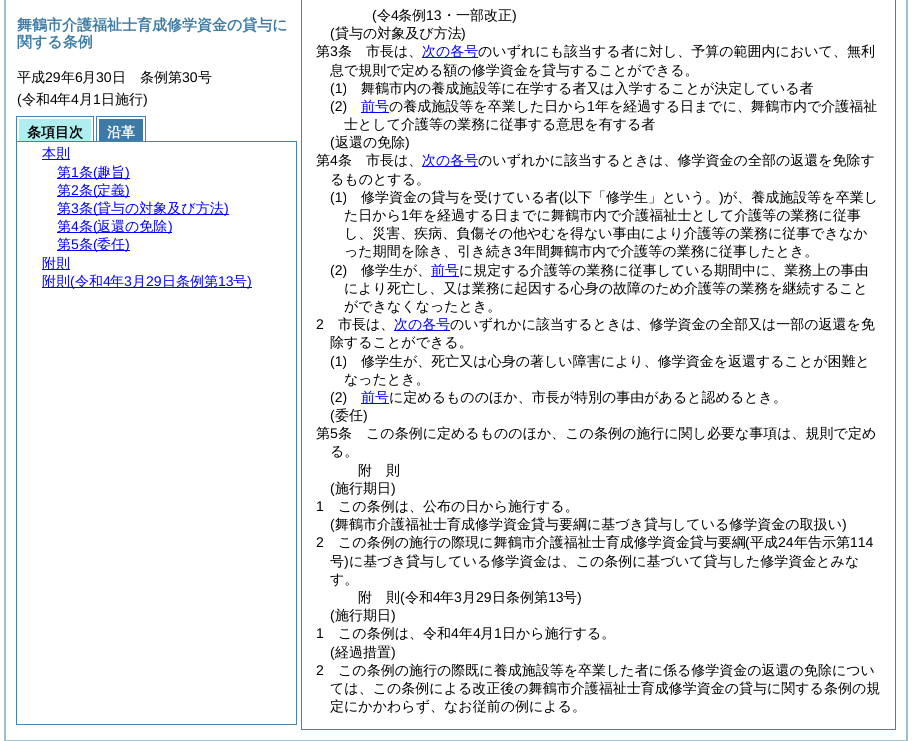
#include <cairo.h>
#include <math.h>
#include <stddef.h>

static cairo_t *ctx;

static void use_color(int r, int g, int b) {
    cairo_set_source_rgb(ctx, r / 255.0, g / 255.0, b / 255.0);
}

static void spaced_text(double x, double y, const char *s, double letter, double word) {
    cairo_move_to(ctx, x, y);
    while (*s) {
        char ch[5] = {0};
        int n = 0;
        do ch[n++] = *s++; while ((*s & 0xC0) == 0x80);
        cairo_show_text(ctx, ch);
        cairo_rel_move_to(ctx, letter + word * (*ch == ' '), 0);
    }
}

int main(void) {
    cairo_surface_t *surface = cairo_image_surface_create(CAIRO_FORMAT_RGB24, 912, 741);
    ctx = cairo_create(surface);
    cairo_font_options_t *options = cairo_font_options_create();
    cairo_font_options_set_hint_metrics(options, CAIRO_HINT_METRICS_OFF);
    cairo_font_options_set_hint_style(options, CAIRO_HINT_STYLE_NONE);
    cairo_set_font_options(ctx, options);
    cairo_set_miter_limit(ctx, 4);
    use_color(255, 255, 255);
    cairo_paint(ctx);
    cairo_rectangle(ctx, 5, -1, 902, 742);
    use_color(160, 191, 204);
    cairo_stroke(ctx);
    cairo_select_font_face(ctx, "WenQuanYi Zen Hei", CAIRO_FONT_SLANT_NORMAL, CAIRO_FONT_WEIGHT_BOLD);
    cairo_set_font_size(ctx, 15);
    use_color(61, 122, 164);
    cairo_move_to(ctx, 17, 30);
    cairo_show_text(ctx, "舞鶴市介護福祉士育成修学資金の貸与に");
    cairo_move_to(ctx, 17, 47);
    cairo_show_text(ctx, "関する条例");
    cairo_select_font_face(ctx, "WenQuanYi Zen Hei Medium", CAIRO_FONT_SLANT_NORMAL, CAIRO_FONT_WEIGHT_NORMAL);
    cairo_set_font_size(ctx, 14);
    use_color(0, 0, 0);
    cairo_move_to(ctx, 17, 82);
    cairo_show_text(ctx, "平成");
    cairo_select_font_face(ctx, "Liberation Sans", CAIRO_FONT_SLANT_NORMAL, CAIRO_FONT_WEIGHT_NORMAL);
    cairo_move_to(ctx, 45, 82);
    cairo_show_text(ctx, "29");
    cairo_select_font_face(ctx, "WenQuanYi Zen Hei Medium", CAIRO_FONT_SLANT_NORMAL, CAIRO_FONT_WEIGHT_NORMAL);
    cairo_move_to(ctx, 61, 82);
    cairo_show_text(ctx, "年");
    cairo_select_font_face(ctx, "Liberation Sans", CAIRO_FONT_SLANT_NORMAL, CAIRO_FONT_WEIGHT_NORMAL);
    cairo_move_to(ctx, 75, 82);
    cairo_show_text(ctx, "6");
    cairo_select_font_face(ctx, "WenQuanYi Zen Hei Medium", CAIRO_FONT_SLANT_NORMAL, CAIRO_FONT_WEIGHT_NORMAL);
    cairo_move_to(ctx, 82, 82);
    cairo_show_text(ctx, "月");
    cairo_select_font_face(ctx, "Liberation Sans", CAIRO_FONT_SLANT_NORMAL, CAIRO_FONT_WEIGHT_NORMAL);
    cairo_move_to(ctx, 96, 82);
    cairo_show_text(ctx, "30");
    cairo_select_font_face(ctx, "WenQuanYi Zen Hei Medium", CAIRO_FONT_SLANT_NORMAL, CAIRO_FONT_WEIGHT_NORMAL);
    cairo_move_to(ctx, 112, 82);
    cairo_show_text(ctx, "日　条例第");
    cairo_select_font_face(ctx, "Liberation Sans", CAIRO_FONT_SLANT_NORMAL, CAIRO_FONT_WEIGHT_NORMAL);
    cairo_move_to(ctx, 182, 82);
    cairo_show_text(ctx, "30");
    cairo_select_font_face(ctx, "WenQuanYi Zen Hei Medium", CAIRO_FONT_SLANT_NORMAL, CAIRO_FONT_WEIGHT_NORMAL);
    cairo_move_to(ctx, 198, 82);
    cairo_show_text(ctx, "号");
    cairo_select_font_face(ctx, "Liberation Sans", CAIRO_FONT_SLANT_NORMAL, CAIRO_FONT_WEIGHT_NORMAL);
    cairo_move_to(ctx, 17, 104);
    cairo_show_text(ctx, "(");
    cairo_select_font_face(ctx, "WenQuanYi Zen Hei Medium", CAIRO_FONT_SLANT_NORMAL, CAIRO_FONT_WEIGHT_NORMAL);
    cairo_move_to(ctx, 22, 104);
    cairo_show_text(ctx, "令和");
    cairo_select_font_face(ctx, "Liberation Sans", CAIRO_FONT_SLANT_NORMAL, CAIRO_FONT_WEIGHT_NORMAL);
    cairo_move_to(ctx, 50, 104);
    cairo_show_text(ctx, "4");
    cairo_select_font_face(ctx, "WenQuanYi Zen Hei Medium", CAIRO_FONT_SLANT_NORMAL, CAIRO_FONT_WEIGHT_NORMAL);
    cairo_move_to(ctx, 57, 104);
    cairo_show_text(ctx, "年");
    cairo_select_font_face(ctx, "Liberation Sans", CAIRO_FONT_SLANT_NORMAL, CAIRO_FONT_WEIGHT_NORMAL);
    cairo_move_to(ctx, 71, 104);
    cairo_show_text(ctx, "4");
    cairo_select_font_face(ctx, "WenQuanYi Zen Hei Medium", CAIRO_FONT_SLANT_NORMAL, CAIRO_FONT_WEIGHT_NORMAL);
    cairo_move_to(ctx, 79, 104);
    cairo_show_text(ctx, "月");
    cairo_select_font_face(ctx, "Liberation Sans", CAIRO_FONT_SLANT_NORMAL, CAIRO_FONT_WEIGHT_NORMAL);
    cairo_move_to(ctx, 93, 104);
    cairo_show_text(ctx, "1");
    cairo_select_font_face(ctx, "WenQuanYi Zen Hei Medium", CAIRO_FONT_SLANT_NORMAL, CAIRO_FONT_WEIGHT_NORMAL);
    cairo_move_to(ctx, 101, 104);
    cairo_show_text(ctx, "日施行");
    cairo_select_font_face(ctx, "Liberation Sans", CAIRO_FONT_SLANT_NORMAL, CAIRO_FONT_WEIGHT_NORMAL);
    cairo_move_to(ctx, 143, 104);
    cairo_show_text(ctx, ")");
    use_color(70, 130, 180);
    cairo_rectangle(ctx, 16, 116, 78, 1);
    cairo_fill(ctx);
    cairo_rectangle(ctx, 93, 116, 1, 26);
    cairo_fill(ctx);
    cairo_rectangle(ctx, 16, 116, 1, 26);
    cairo_fill(ctx);
    use_color(175, 238, 238);
    cairo_rectangle(ctx, 19, 119, 72, 22);
    cairo_fill(ctx);
    cairo_select_font_face(ctx, "WenQuanYi Zen Hei", CAIRO_FONT_SLANT_NORMAL, CAIRO_FONT_WEIGHT_BOLD);
    use_color(0, 0, 0);
    cairo_move_to(ctx, 27, 137);
    cairo_show_text(ctx, "条項目次");
    use_color(70, 130, 180);
    cairo_rectangle(ctx, 96, 116, 50, 1);
    cairo_fill(ctx);
    cairo_rectangle(ctx, 145, 116, 1, 26);
    cairo_fill(ctx);
    cairo_rectangle(ctx, 96, 116, 1, 26);
    cairo_fill(ctx);
    use_color(61, 122, 164);
    cairo_rectangle(ctx, 99, 119, 44, 22);
    cairo_fill(ctx);
    use_color(255, 255, 255);
    cairo_move_to(ctx, 107, 137);
    cairo_show_text(ctx, "沿革");
    cairo_rectangle(ctx, 16.5, 141.5, 280, 583);
    use_color(70, 130, 180);
    cairo_set_line_width(ctx, 1);
    cairo_stroke(ctx);
    use_color(0, 0, 255);
    cairo_rectangle(ctx, 42, 159, 28, 1);
    cairo_fill(ctx);
    cairo_select_font_face(ctx, "WenQuanYi Zen Hei Medium", CAIRO_FONT_SLANT_NORMAL, CAIRO_FONT_WEIGHT_NORMAL);
    cairo_move_to(ctx, 42, 158);
    cairo_show_text(ctx, "本則");
    cairo_rectangle(ctx, 57, 178, 73, 1);
    cairo_fill(ctx);
    cairo_move_to(ctx, 57, 177);
    cairo_show_text(ctx, "第");
    cairo_select_font_face(ctx, "Liberation Sans", CAIRO_FONT_SLANT_NORMAL, CAIRO_FONT_WEIGHT_NORMAL);
    cairo_move_to(ctx, 71, 177);
    cairo_show_text(ctx, "1");
    cairo_select_font_face(ctx, "WenQuanYi Zen Hei Medium", CAIRO_FONT_SLANT_NORMAL, CAIRO_FONT_WEIGHT_NORMAL);
    cairo_move_to(ctx, 79, 177);
    cairo_show_text(ctx, "条");
    cairo_select_font_face(ctx, "Liberation Sans", CAIRO_FONT_SLANT_NORMAL, CAIRO_FONT_WEIGHT_NORMAL);
    cairo_move_to(ctx, 93, 177);
    cairo_show_text(ctx, "(");
    cairo_select_font_face(ctx, "WenQuanYi Zen Hei Medium", CAIRO_FONT_SLANT_NORMAL, CAIRO_FONT_WEIGHT_NORMAL);
    cairo_move_to(ctx, 97, 177);
    cairo_show_text(ctx, "趣旨");
    cairo_select_font_face(ctx, "Liberation Sans", CAIRO_FONT_SLANT_NORMAL, CAIRO_FONT_WEIGHT_NORMAL);
    cairo_move_to(ctx, 125, 177);
    cairo_show_text(ctx, ")");
    cairo_rectangle(ctx, 57, 196, 73, 1);
    cairo_fill(ctx);
    cairo_select_font_face(ctx, "WenQuanYi Zen Hei Medium", CAIRO_FONT_SLANT_NORMAL, CAIRO_FONT_WEIGHT_NORMAL);
    cairo_move_to(ctx, 57, 195);
    cairo_show_text(ctx, "第");
    cairo_select_font_face(ctx, "Liberation Sans", CAIRO_FONT_SLANT_NORMAL, CAIRO_FONT_WEIGHT_NORMAL);
    cairo_move_to(ctx, 71, 195);
    cairo_show_text(ctx, "2");
    cairo_select_font_face(ctx, "WenQuanYi Zen Hei Medium", CAIRO_FONT_SLANT_NORMAL, CAIRO_FONT_WEIGHT_NORMAL);
    cairo_move_to(ctx, 79, 195);
    cairo_show_text(ctx, "条");
    cairo_select_font_face(ctx, "Liberation Sans", CAIRO_FONT_SLANT_NORMAL, CAIRO_FONT_WEIGHT_NORMAL);
    cairo_move_to(ctx, 93, 195);
    cairo_show_text(ctx, "(");
    cairo_select_font_face(ctx, "WenQuanYi Zen Hei Medium", CAIRO_FONT_SLANT_NORMAL, CAIRO_FONT_WEIGHT_NORMAL);
    cairo_move_to(ctx, 97, 195);
    cairo_show_text(ctx, "定義");
    cairo_select_font_face(ctx, "Liberation Sans", CAIRO_FONT_SLANT_NORMAL, CAIRO_FONT_WEIGHT_NORMAL);
    cairo_move_to(ctx, 125, 195);
    cairo_show_text(ctx, ")");
    cairo_rectangle(ctx, 57, 214, 172, 1);
    cairo_fill(ctx);
    cairo_select_font_face(ctx, "WenQuanYi Zen Hei Medium", CAIRO_FONT_SLANT_NORMAL, CAIRO_FONT_WEIGHT_NORMAL);
    cairo_move_to(ctx, 57, 213);
    cairo_show_text(ctx, "第");
    cairo_select_font_face(ctx, "Liberation Sans", CAIRO_FONT_SLANT_NORMAL, CAIRO_FONT_WEIGHT_NORMAL);
    cairo_move_to(ctx, 71, 213);
    cairo_show_text(ctx, "3");
    cairo_select_font_face(ctx, "WenQuanYi Zen Hei Medium", CAIRO_FONT_SLANT_NORMAL, CAIRO_FONT_WEIGHT_NORMAL);
    cairo_move_to(ctx, 79, 213);
    cairo_show_text(ctx, "条");
    cairo_select_font_face(ctx, "Liberation Sans", CAIRO_FONT_SLANT_NORMAL, CAIRO_FONT_WEIGHT_NORMAL);
    cairo_move_to(ctx, 93, 213);
    cairo_show_text(ctx, "(");
    cairo_select_font_face(ctx, "WenQuanYi Zen Hei Medium", CAIRO_FONT_SLANT_NORMAL, CAIRO_FONT_WEIGHT_NORMAL);
    cairo_move_to(ctx, 97, 213);
    cairo_show_text(ctx, "貸与の対象及び方法");
    cairo_select_font_face(ctx, "Liberation Sans", CAIRO_FONT_SLANT_NORMAL, CAIRO_FONT_WEIGHT_NORMAL);
    cairo_move_to(ctx, 224, 213);
    cairo_show_text(ctx, ")");
    cairo_rectangle(ctx, 57, 232, 115, 1);
    cairo_fill(ctx);
    cairo_select_font_face(ctx, "WenQuanYi Zen Hei Medium", CAIRO_FONT_SLANT_NORMAL, CAIRO_FONT_WEIGHT_NORMAL);
    cairo_move_to(ctx, 57, 231);
    cairo_show_text(ctx, "第");
    cairo_select_font_face(ctx, "Liberation Sans", CAIRO_FONT_SLANT_NORMAL, CAIRO_FONT_WEIGHT_NORMAL);
    cairo_move_to(ctx, 71, 231);
    cairo_show_text(ctx, "4");
    cairo_select_font_face(ctx, "WenQuanYi Zen Hei Medium", CAIRO_FONT_SLANT_NORMAL, CAIRO_FONT_WEIGHT_NORMAL);
    cairo_move_to(ctx, 79, 231);
    cairo_show_text(ctx, "条");
    cairo_select_font_face(ctx, "Liberation Sans", CAIRO_FONT_SLANT_NORMAL, CAIRO_FONT_WEIGHT_NORMAL);
    cairo_move_to(ctx, 93, 231);
    cairo_show_text(ctx, "(");
    cairo_select_font_face(ctx, "WenQuanYi Zen Hei Medium", CAIRO_FONT_SLANT_NORMAL, CAIRO_FONT_WEIGHT_NORMAL);
    cairo_move_to(ctx, 97, 231);
    cairo_show_text(ctx, "返還の免除");
    cairo_select_font_face(ctx, "Liberation Sans", CAIRO_FONT_SLANT_NORMAL, CAIRO_FONT_WEIGHT_NORMAL);
    cairo_move_to(ctx, 168, 231);
    cairo_show_text(ctx, ")");
    cairo_rectangle(ctx, 57, 250, 73, 1);
    cairo_fill(ctx);
    cairo_select_font_face(ctx, "WenQuanYi Zen Hei Medium", CAIRO_FONT_SLANT_NORMAL, CAIRO_FONT_WEIGHT_NORMAL);
    cairo_move_to(ctx, 57, 249);
    cairo_show_text(ctx, "第");
    cairo_select_font_face(ctx, "Liberation Sans", CAIRO_FONT_SLANT_NORMAL, CAIRO_FONT_WEIGHT_NORMAL);
    cairo_move_to(ctx, 71, 249);
    cairo_show_text(ctx, "5");
    cairo_select_font_face(ctx, "WenQuanYi Zen Hei Medium", CAIRO_FONT_SLANT_NORMAL, CAIRO_FONT_WEIGHT_NORMAL);
    cairo_move_to(ctx, 79, 249);
    cairo_show_text(ctx, "条");
    cairo_select_font_face(ctx, "Liberation Sans", CAIRO_FONT_SLANT_NORMAL, CAIRO_FONT_WEIGHT_NORMAL);
    cairo_move_to(ctx, 93, 249);
    cairo_show_text(ctx, "(");
    cairo_select_font_face(ctx, "WenQuanYi Zen Hei Medium", CAIRO_FONT_SLANT_NORMAL, CAIRO_FONT_WEIGHT_NORMAL);
    cairo_move_to(ctx, 97, 249);
    cairo_show_text(ctx, "委任");
    cairo_select_font_face(ctx, "Liberation Sans", CAIRO_FONT_SLANT_NORMAL, CAIRO_FONT_WEIGHT_NORMAL);
    cairo_move_to(ctx, 125, 249);
    cairo_show_text(ctx, ")");
    cairo_rectangle(ctx, 42, 269, 28, 1);
    cairo_fill(ctx);
    cairo_select_font_face(ctx, "WenQuanYi Zen Hei Medium", CAIRO_FONT_SLANT_NORMAL, CAIRO_FONT_WEIGHT_NORMAL);
    cairo_move_to(ctx, 42, 268);
    cairo_show_text(ctx, "附則");
    cairo_rectangle(ctx, 42, 287, 210, 1);
    cairo_fill(ctx);
    cairo_move_to(ctx, 42, 286);
    cairo_show_text(ctx, "附則");
    cairo_select_font_face(ctx, "Liberation Sans", CAIRO_FONT_SLANT_NORMAL, CAIRO_FONT_WEIGHT_NORMAL);
    cairo_move_to(ctx, 70, 286);
    cairo_show_text(ctx, "(");
    cairo_select_font_face(ctx, "WenQuanYi Zen Hei Medium", CAIRO_FONT_SLANT_NORMAL, CAIRO_FONT_WEIGHT_NORMAL);
    cairo_move_to(ctx, 75, 286);
    cairo_show_text(ctx, "令和");
    cairo_select_font_face(ctx, "Liberation Sans", CAIRO_FONT_SLANT_NORMAL, CAIRO_FONT_WEIGHT_NORMAL);
    cairo_move_to(ctx, 103, 286);
    cairo_show_text(ctx, "4");
    cairo_select_font_face(ctx, "WenQuanYi Zen Hei Medium", CAIRO_FONT_SLANT_NORMAL, CAIRO_FONT_WEIGHT_NORMAL);
    cairo_move_to(ctx, 110, 286);
    cairo_show_text(ctx, "年");
    cairo_select_font_face(ctx, "Liberation Sans", CAIRO_FONT_SLANT_NORMAL, CAIRO_FONT_WEIGHT_NORMAL);
    cairo_move_to(ctx, 124, 286);
    cairo_show_text(ctx, "3");
    cairo_select_font_face(ctx, "WenQuanYi Zen Hei Medium", CAIRO_FONT_SLANT_NORMAL, CAIRO_FONT_WEIGHT_NORMAL);
    cairo_move_to(ctx, 132, 286);
    cairo_show_text(ctx, "月");
    cairo_select_font_face(ctx, "Liberation Sans", CAIRO_FONT_SLANT_NORMAL, CAIRO_FONT_WEIGHT_NORMAL);
    cairo_move_to(ctx, 146, 286);
    cairo_show_text(ctx, "29");
    cairo_select_font_face(ctx, "WenQuanYi Zen Hei Medium", CAIRO_FONT_SLANT_NORMAL, CAIRO_FONT_WEIGHT_NORMAL);
    cairo_move_to(ctx, 162, 286);
    cairo_show_text(ctx, "日条例第");
    cairo_select_font_face(ctx, "Liberation Sans", CAIRO_FONT_SLANT_NORMAL, CAIRO_FONT_WEIGHT_NORMAL);
    cairo_move_to(ctx, 218, 286);
    cairo_show_text(ctx, "13");
    cairo_select_font_face(ctx, "WenQuanYi Zen Hei Medium", CAIRO_FONT_SLANT_NORMAL, CAIRO_FONT_WEIGHT_NORMAL);
    cairo_move_to(ctx, 233, 286);
    cairo_show_text(ctx, "号");
    cairo_select_font_face(ctx, "Liberation Sans", CAIRO_FONT_SLANT_NORMAL, CAIRO_FONT_WEIGHT_NORMAL);
    cairo_move_to(ctx, 247, 286);
    cairo_show_text(ctx, ")");
    cairo_rectangle(ctx, 301.5, -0.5, 594, 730);
    use_color(70, 130, 180);
    cairo_stroke(ctx);
    use_color(0, 0, 0);
    cairo_move_to(ctx, 372, 20);
    cairo_show_text(ctx, "(");
    cairo_select_font_face(ctx, "WenQuanYi Zen Hei Medium", CAIRO_FONT_SLANT_NORMAL, CAIRO_FONT_WEIGHT_NORMAL);
    cairo_move_to(ctx, 377, 20);
    cairo_show_text(ctx, "令");
    cairo_select_font_face(ctx, "Liberation Sans", CAIRO_FONT_SLANT_NORMAL, CAIRO_FONT_WEIGHT_NORMAL);
    cairo_move_to(ctx, 391, 20);
    cairo_show_text(ctx, "4");
    cairo_select_font_face(ctx, "WenQuanYi Zen Hei Medium", CAIRO_FONT_SLANT_NORMAL, CAIRO_FONT_WEIGHT_NORMAL);
    cairo_move_to(ctx, 398, 20);
    cairo_show_text(ctx, "条例");
    cairo_select_font_face(ctx, "Liberation Sans", CAIRO_FONT_SLANT_NORMAL, CAIRO_FONT_WEIGHT_NORMAL);
    cairo_move_to(ctx, 426, 20);
    cairo_show_text(ctx, "13");
    cairo_select_font_face(ctx, "WenQuanYi Zen Hei Medium", CAIRO_FONT_SLANT_NORMAL, CAIRO_FONT_WEIGHT_NORMAL);
    cairo_move_to(ctx, 442, 20);
    cairo_show_text(ctx, "・一部改正");
    cairo_select_font_face(ctx, "Liberation Sans", CAIRO_FONT_SLANT_NORMAL, CAIRO_FONT_WEIGHT_NORMAL);
    cairo_move_to(ctx, 512, 20);
    cairo_show_text(ctx, ")");
    cairo_move_to(ctx, 330, 38);
    cairo_show_text(ctx, "(");
    cairo_select_font_face(ctx, "WenQuanYi Zen Hei Medium", CAIRO_FONT_SLANT_NORMAL, CAIRO_FONT_WEIGHT_NORMAL);
    cairo_move_to(ctx, 335, 38);
    cairo_show_text(ctx, "貸与の対象及び方法");
    cairo_select_font_face(ctx, "Liberation Sans", CAIRO_FONT_SLANT_NORMAL, CAIRO_FONT_WEIGHT_NORMAL);
    cairo_move_to(ctx, 461, 38);
    cairo_show_text(ctx, ")");
    cairo_select_font_face(ctx, "WenQuanYi Zen Hei Medium", CAIRO_FONT_SLANT_NORMAL, CAIRO_FONT_WEIGHT_NORMAL);
    cairo_move_to(ctx, 316, 56);
    cairo_show_text(ctx, "第");
    cairo_select_font_face(ctx, "Liberation Sans", CAIRO_FONT_SLANT_NORMAL, CAIRO_FONT_WEIGHT_NORMAL);
    cairo_move_to(ctx, 330, 56);
    cairo_show_text(ctx, "3");
    cairo_select_font_face(ctx, "WenQuanYi Zen Hei Medium", CAIRO_FONT_SLANT_NORMAL, CAIRO_FONT_WEIGHT_NORMAL);
    cairo_move_to(ctx, 338, 56);
    cairo_show_text(ctx, "条");
    cairo_move_to(ctx, 366, 56);
    cairo_show_text(ctx, "市長は、");
    use_color(0, 0, 255);
    cairo_rectangle(ctx, 422, 57, 56, 1);
    cairo_fill(ctx);
    cairo_move_to(ctx, 422, 56);
    cairo_show_text(ctx, "次の各号");
    use_color(0, 0, 0);
    cairo_move_to(ctx, 478, 56);
    cairo_show_text(ctx, "のいずれにも該当する者に対し、予算の範囲内において、無利");
    cairo_move_to(ctx, 330, 75);
    cairo_show_text(ctx, "息で規則で定める額の修学資金を貸与することができる。");
    cairo_select_font_face(ctx, "Liberation Sans", CAIRO_FONT_SLANT_NORMAL, CAIRO_FONT_WEIGHT_NORMAL);
    cairo_move_to(ctx, 330, 93);
    cairo_show_text(ctx, "(1)");
    cairo_select_font_face(ctx, "WenQuanYi Zen Hei Medium", CAIRO_FONT_SLANT_NORMAL, CAIRO_FONT_WEIGHT_NORMAL);
    cairo_move_to(ctx, 361, 93);
    cairo_show_text(ctx, "舞鶴市内の養成施設等に在学する者又は入学することが決定している者");
    cairo_select_font_face(ctx, "Liberation Sans", CAIRO_FONT_SLANT_NORMAL, CAIRO_FONT_WEIGHT_NORMAL);
    cairo_move_to(ctx, 330, 111);
    cairo_show_text(ctx, "(2)");
    use_color(0, 0, 255);
    cairo_rectangle(ctx, 361, 112, 28, 1);
    cairo_fill(ctx);
    cairo_select_font_face(ctx, "WenQuanYi Zen Hei Medium", CAIRO_FONT_SLANT_NORMAL, CAIRO_FONT_WEIGHT_NORMAL);
    cairo_move_to(ctx, 361, 111);
    cairo_show_text(ctx, "前号");
    use_color(0, 0, 0);
    cairo_move_to(ctx, 389, 111);
    cairo_show_text(ctx, "の養成施設等を卒業した日から");
    cairo_select_font_face(ctx, "Liberation Sans", CAIRO_FONT_SLANT_NORMAL, CAIRO_FONT_WEIGHT_NORMAL);
    cairo_move_to(ctx, 587, 111);
    cairo_show_text(ctx, "1");
    cairo_select_font_face(ctx, "WenQuanYi Zen Hei Medium", CAIRO_FONT_SLANT_NORMAL, CAIRO_FONT_WEIGHT_NORMAL);
    cairo_move_to(ctx, 595, 111);
    cairo_show_text(ctx, "年を経過する日までに、舞鶴市内で介護福祉");
    cairo_move_to(ctx, 344, 129);
    cairo_show_text(ctx, "士として介護等の業務に従事する意思を有する者");
    cairo_select_font_face(ctx, "Liberation Sans", CAIRO_FONT_SLANT_NORMAL, CAIRO_FONT_WEIGHT_NORMAL);
    cairo_move_to(ctx, 330, 147);
    cairo_show_text(ctx, "(");
    cairo_select_font_face(ctx, "WenQuanYi Zen Hei Medium", CAIRO_FONT_SLANT_NORMAL, CAIRO_FONT_WEIGHT_NORMAL);
    cairo_move_to(ctx, 335, 147);
    cairo_show_text(ctx, "返還の免除");
    cairo_select_font_face(ctx, "Liberation Sans", CAIRO_FONT_SLANT_NORMAL, CAIRO_FONT_WEIGHT_NORMAL);
    cairo_move_to(ctx, 405, 147);
    cairo_show_text(ctx, ")");
    cairo_select_font_face(ctx, "WenQuanYi Zen Hei Medium", CAIRO_FONT_SLANT_NORMAL, CAIRO_FONT_WEIGHT_NORMAL);
    cairo_move_to(ctx, 316, 165);
    cairo_show_text(ctx, "第");
    cairo_select_font_face(ctx, "Liberation Sans", CAIRO_FONT_SLANT_NORMAL, CAIRO_FONT_WEIGHT_NORMAL);
    cairo_move_to(ctx, 330, 165);
    cairo_show_text(ctx, "4");
    cairo_select_font_face(ctx, "WenQuanYi Zen Hei Medium", CAIRO_FONT_SLANT_NORMAL, CAIRO_FONT_WEIGHT_NORMAL);
    cairo_move_to(ctx, 338, 165);
    cairo_show_text(ctx, "条");
    cairo_move_to(ctx, 366, 165);
    cairo_show_text(ctx, "市長は、");
    use_color(0, 0, 255);
    cairo_rectangle(ctx, 422, 166, 56, 1);
    cairo_fill(ctx);
    cairo_move_to(ctx, 422, 165);
    cairo_show_text(ctx, "次の各号");
    use_color(0, 0, 0);
    cairo_move_to(ctx, 478, 165);
    cairo_show_text(ctx, "のいずれかに該当するときは、修学資金の全部の返還を免除す");
    cairo_move_to(ctx, 330, 184);
    cairo_show_text(ctx, "るものとする。");
    cairo_select_font_face(ctx, "Liberation Sans", CAIRO_FONT_SLANT_NORMAL, CAIRO_FONT_WEIGHT_NORMAL);
    cairo_move_to(ctx, 330, 202);
    cairo_show_text(ctx, "(1)");
    cairo_select_font_face(ctx, "WenQuanYi Zen Hei Medium", CAIRO_FONT_SLANT_NORMAL, CAIRO_FONT_WEIGHT_NORMAL);
    cairo_move_to(ctx, 361, 202);
    cairo_show_text(ctx, "修学資金の貸与を受けている者");
    cairo_select_font_face(ctx, "Liberation Sans", CAIRO_FONT_SLANT_NORMAL, CAIRO_FONT_WEIGHT_NORMAL);
    cairo_move_to(ctx, 559, 202);
    cairo_show_text(ctx, "(");
    cairo_select_font_face(ctx, "WenQuanYi Zen Hei Medium", CAIRO_FONT_SLANT_NORMAL, CAIRO_FONT_WEIGHT_NORMAL);
    cairo_move_to(ctx, 564, 202);
    cairo_show_text(ctx, "以下「修学生」という。");
    cairo_select_font_face(ctx, "Liberation Sans", CAIRO_FONT_SLANT_NORMAL, CAIRO_FONT_WEIGHT_NORMAL);
    cairo_move_to(ctx, 719, 202);
    cairo_show_text(ctx, ")");
    cairo_select_font_face(ctx, "WenQuanYi Zen Hei Medium", CAIRO_FONT_SLANT_NORMAL, CAIRO_FONT_WEIGHT_NORMAL);
    cairo_move_to(ctx, 723, 202);
    cairo_show_text(ctx, "が、養成施設等を卒業し");
    cairo_move_to(ctx, 344, 220);
    cairo_show_text(ctx, "た日から");
    cairo_select_font_face(ctx, "Liberation Sans", CAIRO_FONT_SLANT_NORMAL, CAIRO_FONT_WEIGHT_NORMAL);
    cairo_move_to(ctx, 401, 220);
    cairo_show_text(ctx, "1");
    cairo_select_font_face(ctx, "WenQuanYi Zen Hei Medium", CAIRO_FONT_SLANT_NORMAL, CAIRO_FONT_WEIGHT_NORMAL);
    cairo_move_to(ctx, 409, 220);
    cairo_show_text(ctx, "年を経過する日までに舞鶴市内で介護福祉士として介護等の業務に従事");
    cairo_move_to(ctx, 344, 238);
    cairo_show_text(ctx, "し、災害、疾病、負傷その他やむを得ない事由により介護等の業務に従事できなか");
    cairo_move_to(ctx, 344, 256);
    cairo_show_text(ctx, "った期間を除き、引き続き");
    cairo_select_font_face(ctx, "Liberation Sans", CAIRO_FONT_SLANT_NORMAL, CAIRO_FONT_WEIGHT_NORMAL);
    cairo_move_to(ctx, 514, 256);
    cairo_show_text(ctx, "3");
    cairo_select_font_face(ctx, "WenQuanYi Zen Hei Medium", CAIRO_FONT_SLANT_NORMAL, CAIRO_FONT_WEIGHT_NORMAL);
    cairo_move_to(ctx, 522, 256);
    cairo_show_text(ctx, "年間舞鶴市内で介護等の業務に従事したとき。");
    cairo_select_font_face(ctx, "Liberation Sans", CAIRO_FONT_SLANT_NORMAL, CAIRO_FONT_WEIGHT_NORMAL);
    cairo_move_to(ctx, 330, 275);
    cairo_show_text(ctx, "(2)");
    cairo_select_font_face(ctx, "WenQuanYi Zen Hei Medium", CAIRO_FONT_SLANT_NORMAL, CAIRO_FONT_WEIGHT_NORMAL);
    cairo_move_to(ctx, 361, 275);
    cairo_show_text(ctx, "修学生が、");
    use_color(0, 0, 255);
    cairo_rectangle(ctx, 431, 276, 28, 1);
    cairo_fill(ctx);
    cairo_move_to(ctx, 431, 275);
    cairo_show_text(ctx, "前号");
    use_color(0, 0, 0);
    cairo_move_to(ctx, 459, 275);
    cairo_show_text(ctx, "に規定する介護等の業務に従事している期間中に、業務上の事由");
    cairo_move_to(ctx, 344, 293);
    cairo_show_text(ctx, "により死亡し、又は業務に起因する心身の故障のため介護等の業務を継続すること");
    cairo_move_to(ctx, 344, 311);
    cairo_show_text(ctx, "ができなくなったとき。");
    cairo_select_font_face(ctx, "Liberation Sans", CAIRO_FONT_SLANT_NORMAL, CAIRO_FONT_WEIGHT_NORMAL);
    cairo_move_to(ctx, 316, 329);
    cairo_show_text(ctx, "2");
    cairo_select_font_face(ctx, "WenQuanYi Zen Hei Medium", CAIRO_FONT_SLANT_NORMAL, CAIRO_FONT_WEIGHT_NORMAL);
    cairo_move_to(ctx, 338, 329);
    cairo_show_text(ctx, "市長は、");
    use_color(0, 0, 255);
    cairo_rectangle(ctx, 394, 330, 56, 1);
    cairo_fill(ctx);
    cairo_move_to(ctx, 394, 329);
    cairo_show_text(ctx, "次の各号");
    use_color(0, 0, 0);
    cairo_move_to(ctx, 450, 329);
    cairo_show_text(ctx, "のいずれかに該当するときは、修学資金の全部又は一部の返還を免");
    cairo_move_to(ctx, 330, 347);
    cairo_show_text(ctx, "除することができる。");
    cairo_select_font_face(ctx, "Liberation Sans", CAIRO_FONT_SLANT_NORMAL, CAIRO_FONT_WEIGHT_NORMAL);
    cairo_move_to(ctx, 330, 366);
    cairo_show_text(ctx, "(1)");
    cairo_select_font_face(ctx, "WenQuanYi Zen Hei Medium", CAIRO_FONT_SLANT_NORMAL, CAIRO_FONT_WEIGHT_NORMAL);
    cairo_move_to(ctx, 361, 366);
    cairo_show_text(ctx, "修学生が、死亡又は心身の著しい障害により、修学資金を返還することが困難と");
    cairo_move_to(ctx, 344, 384);
    cairo_show_text(ctx, "なったとき。");
    cairo_select_font_face(ctx, "Liberation Sans", CAIRO_FONT_SLANT_NORMAL, CAIRO_FONT_WEIGHT_NORMAL);
    cairo_move_to(ctx, 330, 402);
    cairo_show_text(ctx, "(2)");
    use_color(0, 0, 255);
    cairo_rectangle(ctx, 361, 403, 28, 1);
    cairo_fill(ctx);
    cairo_select_font_face(ctx, "WenQuanYi Zen Hei Medium", CAIRO_FONT_SLANT_NORMAL, CAIRO_FONT_WEIGHT_NORMAL);
    cairo_move_to(ctx, 361, 402);
    cairo_show_text(ctx, "前号");
    use_color(0, 0, 0);
    cairo_move_to(ctx, 389, 402);
    cairo_show_text(ctx, "に定めるもののほか、市長が特別の事由があると認めるとき。");
    cairo_select_font_face(ctx, "Liberation Sans", CAIRO_FONT_SLANT_NORMAL, CAIRO_FONT_WEIGHT_NORMAL);
    cairo_move_to(ctx, 330, 420);
    cairo_show_text(ctx, "(");
    cairo_select_font_face(ctx, "WenQuanYi Zen Hei Medium", CAIRO_FONT_SLANT_NORMAL, CAIRO_FONT_WEIGHT_NORMAL);
    cairo_move_to(ctx, 335, 420);
    cairo_show_text(ctx, "委任");
    cairo_select_font_face(ctx, "Liberation Sans", CAIRO_FONT_SLANT_NORMAL, CAIRO_FONT_WEIGHT_NORMAL);
    cairo_move_to(ctx, 363, 420);
    cairo_show_text(ctx, ")");
    cairo_select_font_face(ctx, "WenQuanYi Zen Hei Medium", CAIRO_FONT_SLANT_NORMAL, CAIRO_FONT_WEIGHT_NORMAL);
    cairo_move_to(ctx, 316, 438);
    cairo_show_text(ctx, "第");
    cairo_select_font_face(ctx, "Liberation Sans", CAIRO_FONT_SLANT_NORMAL, CAIRO_FONT_WEIGHT_NORMAL);
    cairo_move_to(ctx, 330, 438);
    cairo_show_text(ctx, "5");
    cairo_select_font_face(ctx, "WenQuanYi Zen Hei Medium", CAIRO_FONT_SLANT_NORMAL, CAIRO_FONT_WEIGHT_NORMAL);
    cairo_move_to(ctx, 338, 438);
    cairo_show_text(ctx, "条");
    cairo_move_to(ctx, 366, 438);
    cairo_show_text(ctx, "この条例に定めるもののほか、この条例の施行に関し必要な事項は、規則で定め");
    cairo_move_to(ctx, 330, 456);
    cairo_show_text(ctx, "る。");
    spaced_text(358, 475, "附", 14, 0);
    cairo_move_to(ctx, 386, 475);
    cairo_show_text(ctx, "則");
    cairo_select_font_face(ctx, "Liberation Sans", CAIRO_FONT_SLANT_NORMAL, CAIRO_FONT_WEIGHT_NORMAL);
    cairo_move_to(ctx, 330, 493);
    cairo_show_text(ctx, "(");
    cairo_select_font_face(ctx, "WenQuanYi Zen Hei Medium", CAIRO_FONT_SLANT_NORMAL, CAIRO_FONT_WEIGHT_NORMAL);
    cairo_move_to(ctx, 335, 493);
    cairo_show_text(ctx, "施行期日");
    cairo_select_font_face(ctx, "Liberation Sans", CAIRO_FONT_SLANT_NORMAL, CAIRO_FONT_WEIGHT_NORMAL);
    cairo_move_to(ctx, 391, 493);
    cairo_show_text(ctx, ")");
    cairo_move_to(ctx, 316, 511);
    cairo_show_text(ctx, "1");
    cairo_select_font_face(ctx, "WenQuanYi Zen Hei Medium", CAIRO_FONT_SLANT_NORMAL, CAIRO_FONT_WEIGHT_NORMAL);
    cairo_move_to(ctx, 338, 511);
    cairo_show_text(ctx, "この条例は、公布の日から施行する。");
    cairo_select_font_face(ctx, "Liberation Sans", CAIRO_FONT_SLANT_NORMAL, CAIRO_FONT_WEIGHT_NORMAL);
    cairo_move_to(ctx, 330, 529);
    cairo_show_text(ctx, "(");
    cairo_select_font_face(ctx, "WenQuanYi Zen Hei Medium", CAIRO_FONT_SLANT_NORMAL, CAIRO_FONT_WEIGHT_NORMAL);
    cairo_move_to(ctx, 335, 529);
    cairo_show_text(ctx, "舞鶴市介護福祉士育成修学資金貸与要綱に基づき貸与している修学資金の取扱い");
    cairo_select_font_face(ctx, "Liberation Sans", CAIRO_FONT_SLANT_NORMAL, CAIRO_FONT_WEIGHT_NORMAL);
    cairo_move_to(ctx, 842, 529);
    cairo_show_text(ctx, ")");
    cairo_move_to(ctx, 316, 547);
    cairo_show_text(ctx, "2");
    cairo_select_font_face(ctx, "WenQuanYi Zen Hei Medium", CAIRO_FONT_SLANT_NORMAL, CAIRO_FONT_WEIGHT_NORMAL);
    cairo_move_to(ctx, 338, 547);
    cairo_show_text(ctx, "この条例の施行の際現に舞鶴市介護福祉士育成修学資金貸与要綱");
    cairo_select_font_face(ctx, "Liberation Sans", CAIRO_FONT_SLANT_NORMAL, CAIRO_FONT_WEIGHT_NORMAL);
    cairo_move_to(ctx, 745, 547);
    cairo_show_text(ctx, "(");
    cairo_select_font_face(ctx, "WenQuanYi Zen Hei Medium", CAIRO_FONT_SLANT_NORMAL, CAIRO_FONT_WEIGHT_NORMAL);
    cairo_move_to(ctx, 750, 547);
    cairo_show_text(ctx, "平成");
    cairo_select_font_face(ctx, "Liberation Sans", CAIRO_FONT_SLANT_NORMAL, CAIRO_FONT_WEIGHT_NORMAL);
    cairo_move_to(ctx, 778, 547);
    cairo_show_text(ctx, "24");
    cairo_select_font_face(ctx, "WenQuanYi Zen Hei Medium", CAIRO_FONT_SLANT_NORMAL, CAIRO_FONT_WEIGHT_NORMAL);
    cairo_move_to(ctx, 794, 547);
    cairo_show_text(ctx, "年告示第");
    cairo_select_font_face(ctx, "Liberation Sans", CAIRO_FONT_SLANT_NORMAL, CAIRO_FONT_WEIGHT_NORMAL);
    cairo_move_to(ctx, 850, 547);
    cairo_show_text(ctx, "114");
    cairo_select_font_face(ctx, "WenQuanYi Zen Hei Medium", CAIRO_FONT_SLANT_NORMAL, CAIRO_FONT_WEIGHT_NORMAL);
    cairo_move_to(ctx, 330, 566);
    cairo_show_text(ctx, "号");
    cairo_select_font_face(ctx, "Liberation Sans", CAIRO_FONT_SLANT_NORMAL, CAIRO_FONT_WEIGHT_NORMAL);
    cairo_move_to(ctx, 344, 566);
    cairo_show_text(ctx, ")");
    cairo_select_font_face(ctx, "WenQuanYi Zen Hei Medium", CAIRO_FONT_SLANT_NORMAL, CAIRO_FONT_WEIGHT_NORMAL);
    cairo_move_to(ctx, 349, 566);
    cairo_show_text(ctx, "に基づき貸与している修学資金は、この条例に基づいて貸与した修学資金とみな");
    cairo_move_to(ctx, 330, 584);
    cairo_show_text(ctx, "す。");
    spaced_text(358, 602, "附", 14, 0);
    cairo_move_to(ctx, 386, 602);
    cairo_show_text(ctx, "則");
    cairo_select_font_face(ctx, "Liberation Sans", CAIRO_FONT_SLANT_NORMAL, CAIRO_FONT_WEIGHT_NORMAL);
    cairo_move_to(ctx, 400, 602);
    cairo_show_text(ctx, "(");
    cairo_select_font_face(ctx, "WenQuanYi Zen Hei Medium", CAIRO_FONT_SLANT_NORMAL, CAIRO_FONT_WEIGHT_NORMAL);
    cairo_move_to(ctx, 405, 602);
    cairo_show_text(ctx, "令和");
    cairo_select_font_face(ctx, "Liberation Sans", CAIRO_FONT_SLANT_NORMAL, CAIRO_FONT_WEIGHT_NORMAL);
    cairo_move_to(ctx, 433, 602);
    cairo_show_text(ctx, "4");
    cairo_select_font_face(ctx, "WenQuanYi Zen Hei Medium", CAIRO_FONT_SLANT_NORMAL, CAIRO_FONT_WEIGHT_NORMAL);
    cairo_move_to(ctx, 440, 602);
    cairo_show_text(ctx, "年");
    cairo_select_font_face(ctx, "Liberation Sans", CAIRO_FONT_SLANT_NORMAL, CAIRO_FONT_WEIGHT_NORMAL);
    cairo_move_to(ctx, 454, 602);
    cairo_show_text(ctx, "3");
    cairo_select_font_face(ctx, "WenQuanYi Zen Hei Medium", CAIRO_FONT_SLANT_NORMAL, CAIRO_FONT_WEIGHT_NORMAL);
    cairo_move_to(ctx, 462, 602);
    cairo_show_text(ctx, "月");
    cairo_select_font_face(ctx, "Liberation Sans", CAIRO_FONT_SLANT_NORMAL, CAIRO_FONT_WEIGHT_NORMAL);
    cairo_move_to(ctx, 476, 602);
    cairo_show_text(ctx, "29");
    cairo_select_font_face(ctx, "WenQuanYi Zen Hei Medium", CAIRO_FONT_SLANT_NORMAL, CAIRO_FONT_WEIGHT_NORMAL);
    cairo_move_to(ctx, 492, 602);
    cairo_show_text(ctx, "日条例第");
    cairo_select_font_face(ctx, "Liberation Sans", CAIRO_FONT_SLANT_NORMAL, CAIRO_FONT_WEIGHT_NORMAL);
    cairo_move_to(ctx, 548, 602);
    cairo_show_text(ctx, "13");
    cairo_select_font_face(ctx, "WenQuanYi Zen Hei Medium", CAIRO_FONT_SLANT_NORMAL, CAIRO_FONT_WEIGHT_NORMAL);
    cairo_move_to(ctx, 563, 602);
    cairo_show_text(ctx, "号");
    cairo_select_font_face(ctx, "Liberation Sans", CAIRO_FONT_SLANT_NORMAL, CAIRO_FONT_WEIGHT_NORMAL);
    cairo_move_to(ctx, 577, 602);
    cairo_show_text(ctx, ")");
    cairo_move_to(ctx, 330, 620);
    cairo_show_text(ctx, "(");
    cairo_select_font_face(ctx, "WenQuanYi Zen Hei Medium", CAIRO_FONT_SLANT_NORMAL, CAIRO_FONT_WEIGHT_NORMAL);
    cairo_move_to(ctx, 335, 620);
    cairo_show_text(ctx, "施行期日");
    cairo_select_font_face(ctx, "Liberation Sans", CAIRO_FONT_SLANT_NORMAL, CAIRO_FONT_WEIGHT_NORMAL);
    cairo_move_to(ctx, 391, 620);
    cairo_show_text(ctx, ")");
    cairo_move_to(ctx, 316, 638);
    cairo_show_text(ctx, "1");
    cairo_select_font_face(ctx, "WenQuanYi Zen Hei Medium", CAIRO_FONT_SLANT_NORMAL, CAIRO_FONT_WEIGHT_NORMAL);
    cairo_move_to(ctx, 338, 638);
    cairo_show_text(ctx, "この条例は、令和");
    cairo_select_font_face(ctx, "Liberation Sans", CAIRO_FONT_SLANT_NORMAL, CAIRO_FONT_WEIGHT_NORMAL);
    cairo_move_to(ctx, 451, 638);
    cairo_show_text(ctx, "4");
    cairo_select_font_face(ctx, "WenQuanYi Zen Hei Medium", CAIRO_FONT_SLANT_NORMAL, CAIRO_FONT_WEIGHT_NORMAL);
    cairo_move_to(ctx, 459, 638);
    cairo_show_text(ctx, "年");
    cairo_select_font_face(ctx, "Liberation Sans", CAIRO_FONT_SLANT_NORMAL, CAIRO_FONT_WEIGHT_NORMAL);
    cairo_move_to(ctx, 473, 638);
    cairo_show_text(ctx, "4");
    cairo_select_font_face(ctx, "WenQuanYi Zen Hei Medium", CAIRO_FONT_SLANT_NORMAL, CAIRO_FONT_WEIGHT_NORMAL);
    cairo_move_to(ctx, 480, 638);
    cairo_show_text(ctx, "月");
    cairo_select_font_face(ctx, "Liberation Sans", CAIRO_FONT_SLANT_NORMAL, CAIRO_FONT_WEIGHT_NORMAL);
    cairo_move_to(ctx, 494, 638);
    cairo_show_text(ctx, "1");
    cairo_select_font_face(ctx, "WenQuanYi Zen Hei Medium", CAIRO_FONT_SLANT_NORMAL, CAIRO_FONT_WEIGHT_NORMAL);
    cairo_move_to(ctx, 502, 638);
    cairo_show_text(ctx, "日から施行する。");
    cairo_select_font_face(ctx, "Liberation Sans", CAIRO_FONT_SLANT_NORMAL, CAIRO_FONT_WEIGHT_NORMAL);
    cairo_move_to(ctx, 330, 657);
    cairo_show_text(ctx, "(");
    cairo_select_font_face(ctx, "WenQuanYi Zen Hei Medium", CAIRO_FONT_SLANT_NORMAL, CAIRO_FONT_WEIGHT_NORMAL);
    cairo_move_to(ctx, 335, 657);
    cairo_show_text(ctx, "経過措置");
    cairo_select_font_face(ctx, "Liberation Sans", CAIRO_FONT_SLANT_NORMAL, CAIRO_FONT_WEIGHT_NORMAL);
    cairo_move_to(ctx, 391, 657);
    cairo_show_text(ctx, ")");
    cairo_move_to(ctx, 316, 675);
    cairo_show_text(ctx, "2");
    cairo_select_font_face(ctx, "WenQuanYi Zen Hei Medium", CAIRO_FONT_SLANT_NORMAL, CAIRO_FONT_WEIGHT_NORMAL);
    cairo_move_to(ctx, 338, 675);
    cairo_show_text(ctx, "この条例の施行の際既に養成施設等を卒業した者に係る修学資金の返還の免除につい");
    cairo_move_to(ctx, 330, 693);
    cairo_show_text(ctx, "ては、この条例による改正後の舞鶴市介護福祉士育成修学資金の貸与に関する条例の規");
    cairo_move_to(ctx, 330, 711);
    cairo_show_text(ctx, "定にかかわらず、なお従前の例による。");
    cairo_surface_write_to_png(surface, "result.png");
    cairo_font_options_destroy(options);
    cairo_destroy(ctx);
    cairo_surface_destroy(surface);
    return 0;
}
